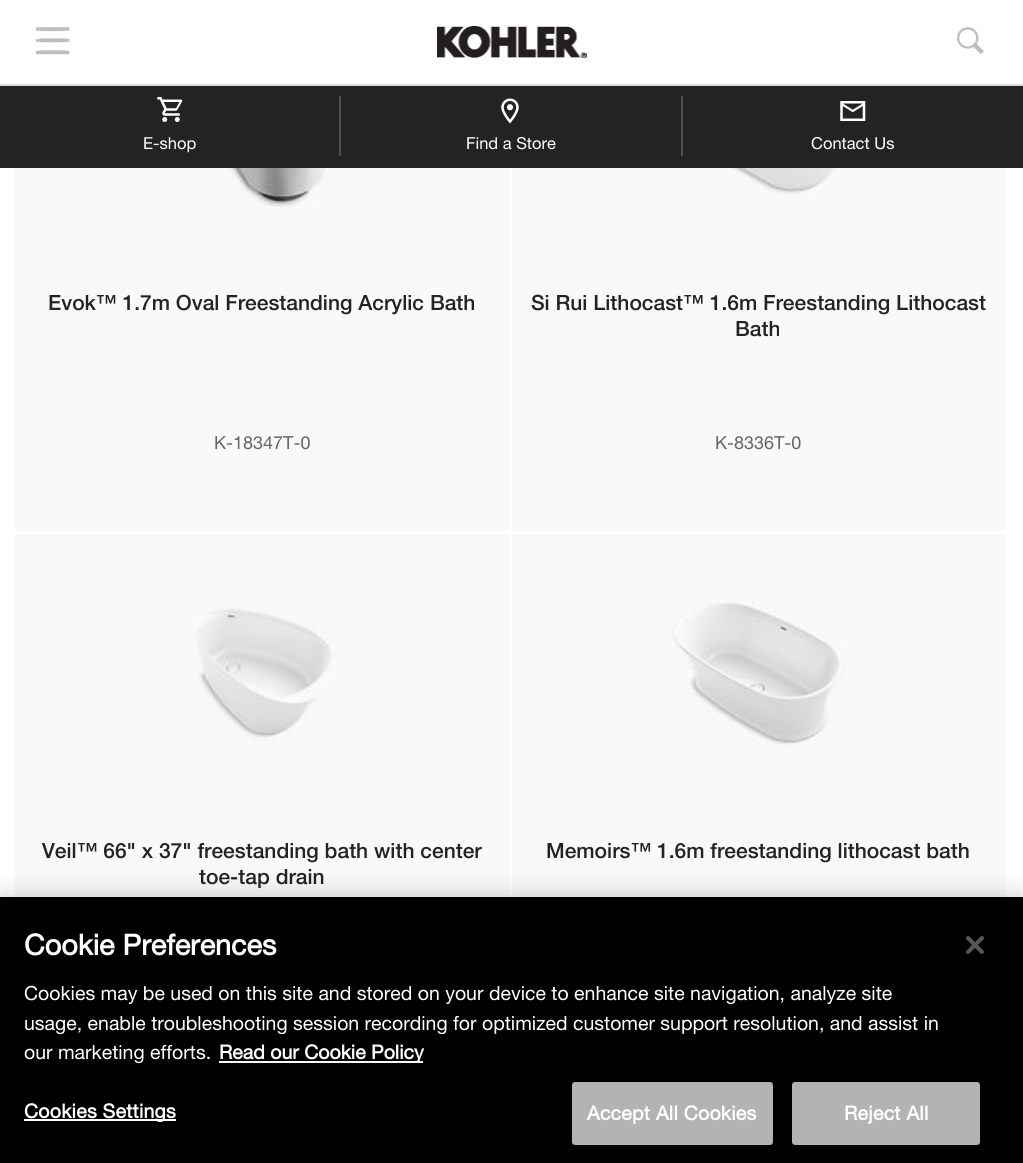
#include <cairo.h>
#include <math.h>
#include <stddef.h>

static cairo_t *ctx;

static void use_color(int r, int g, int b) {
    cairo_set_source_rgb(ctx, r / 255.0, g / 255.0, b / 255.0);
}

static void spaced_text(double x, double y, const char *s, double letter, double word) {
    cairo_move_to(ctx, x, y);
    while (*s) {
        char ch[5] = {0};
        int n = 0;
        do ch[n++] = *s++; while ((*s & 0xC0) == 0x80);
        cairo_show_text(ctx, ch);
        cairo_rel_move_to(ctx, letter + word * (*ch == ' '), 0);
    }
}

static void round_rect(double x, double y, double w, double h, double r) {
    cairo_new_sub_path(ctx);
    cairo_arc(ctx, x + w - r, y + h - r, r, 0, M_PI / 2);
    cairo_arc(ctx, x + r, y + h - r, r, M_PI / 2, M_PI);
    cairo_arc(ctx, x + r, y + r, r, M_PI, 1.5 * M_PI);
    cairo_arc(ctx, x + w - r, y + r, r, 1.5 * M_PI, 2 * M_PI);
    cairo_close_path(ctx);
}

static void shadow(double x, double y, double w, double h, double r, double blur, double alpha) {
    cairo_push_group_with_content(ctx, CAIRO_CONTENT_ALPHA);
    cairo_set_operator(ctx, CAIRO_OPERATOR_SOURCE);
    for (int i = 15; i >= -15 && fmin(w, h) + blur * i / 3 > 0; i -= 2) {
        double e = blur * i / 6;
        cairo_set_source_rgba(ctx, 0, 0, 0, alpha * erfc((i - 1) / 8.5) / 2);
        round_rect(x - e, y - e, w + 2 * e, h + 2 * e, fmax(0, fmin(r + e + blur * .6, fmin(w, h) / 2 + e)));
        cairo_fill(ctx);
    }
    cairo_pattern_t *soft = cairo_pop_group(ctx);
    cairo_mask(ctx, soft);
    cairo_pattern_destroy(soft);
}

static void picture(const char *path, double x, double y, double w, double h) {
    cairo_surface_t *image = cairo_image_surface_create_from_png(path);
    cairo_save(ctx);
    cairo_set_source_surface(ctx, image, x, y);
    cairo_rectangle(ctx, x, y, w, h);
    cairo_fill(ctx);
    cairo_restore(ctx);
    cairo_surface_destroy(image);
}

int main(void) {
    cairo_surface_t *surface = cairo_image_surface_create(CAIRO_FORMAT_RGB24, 1023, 1163);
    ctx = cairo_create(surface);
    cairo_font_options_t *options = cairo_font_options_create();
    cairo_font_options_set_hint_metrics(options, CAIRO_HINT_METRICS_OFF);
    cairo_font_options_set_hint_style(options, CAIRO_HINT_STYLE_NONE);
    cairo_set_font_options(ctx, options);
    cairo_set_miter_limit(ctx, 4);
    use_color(255, 255, 255);
    cairo_paint(ctx);
    use_color(219, 219, 219);
    cairo_rectangle(ctx, 0, 84, 1023, 2);
    cairo_fill(ctx);
    picture("img1.png", 36, 27, 34, 28);
    picture("img2.png", 437, 26, 150, 32);
    picture("img3.png", 957, 27, 27, 28);
    use_color(35, 35, 35);
    cairo_rectangle(ctx, 0, 86, 1023, 82);
    cairo_fill(ctx);
    use_color(79, 79, 79);
    cairo_rectangle(ctx, 339, 96, 2, 60);
    cairo_fill(ctx);
    picture("img4.png", 157, 97, 26, 25);
    cairo_select_font_face(ctx, "Helvetica", CAIRO_FONT_SLANT_NORMAL, CAIRO_FONT_WEIGHT_NORMAL);
    cairo_set_font_size(ctx, 16.5);
    use_color(255, 255, 255);
    cairo_move_to(ctx, 143, 149);
    cairo_show_text(ctx, "E-shop");
    use_color(79, 79, 79);
    cairo_rectangle(ctx, 681, 96, 2, 60);
    cairo_fill(ctx);
    picture("img5.png", 501, 98, 18, 26);
    use_color(255, 255, 255);
    cairo_move_to(ctx, 466, 149);
    cairo_show_text(ctx, "Find a Store");
    picture("img6.png", 840, 101, 26, 20);
    cairo_move_to(ctx, 811, 149);
    cairo_show_text(ctx, "Contact Us");
    use_color(249, 249, 249);
    cairo_rectangle(ctx, 15, 168, 494, 363);
    cairo_fill(ctx);
    picture("img7.png", 183, 168, 147, 39);
    cairo_select_font_face(ctx, "Helvetica Medium", CAIRO_FONT_SLANT_NORMAL, CAIRO_FONT_WEIGHT_NORMAL);
    cairo_set_font_size(ctx, 21);
    use_color(35, 35, 35);
    cairo_move_to(ctx, 48, 310);
    cairo_show_text(ctx, "Evok™ 1.7m Oval Freestanding Acrylic Bath");
    cairo_select_font_face(ctx, "Helvetica", CAIRO_FONT_SLANT_NORMAL, CAIRO_FONT_WEIGHT_NORMAL);
    cairo_set_font_size(ctx, 18);
    use_color(102, 102, 102);
    cairo_move_to(ctx, 214, 449);
    cairo_show_text(ctx, "K-18347T-0");
    use_color(249, 249, 249);
    cairo_rectangle(ctx, 512, 168, 493, 363);
    cairo_fill(ctx);
    picture("img8.png", 680, 168, 157, 26);
    cairo_select_font_face(ctx, "Helvetica Medium", CAIRO_FONT_SLANT_NORMAL, CAIRO_FONT_WEIGHT_NORMAL);
    cairo_set_font_size(ctx, 21);
    use_color(35, 35, 35);
    cairo_move_to(ctx, 531, 310);
    cairo_show_text(ctx, "Si Rui Lithocast™ 1.6m Freestanding Lithocast");
    cairo_move_to(ctx, 735, 336);
    cairo_show_text(ctx, "Bath");
    cairo_select_font_face(ctx, "Helvetica", CAIRO_FONT_SLANT_NORMAL, CAIRO_FONT_WEIGHT_NORMAL);
    cairo_set_font_size(ctx, 18);
    use_color(102, 102, 102);
    cairo_move_to(ctx, 715, 449);
    cairo_show_text(ctx, "K-8336T-0");
    use_color(249, 249, 249);
    cairo_rectangle(ctx, 15, 534, 494, 363);
    cairo_fill(ctx);
    picture("img9.png", 196, 608, 136, 134);
    cairo_select_font_face(ctx, "Helvetica Medium", CAIRO_FONT_SLANT_NORMAL, CAIRO_FONT_WEIGHT_NORMAL);
    cairo_set_font_size(ctx, 21);
    use_color(35, 35, 35);
    cairo_move_to(ctx, 42, 858);
    cairo_show_text(ctx, "Veil™ 66\" x 37\" freestanding bath with center");
    cairo_move_to(ctx, 199, 884);
    cairo_show_text(ctx, "toe-tap drain");
    use_color(249, 249, 249);
    cairo_rectangle(ctx, 512, 534, 493, 363);
    cairo_fill(ctx);
    picture("img10.png", 672, 602, 172, 143);
    use_color(35, 35, 35);
    cairo_move_to(ctx, 546, 858);
    cairo_show_text(ctx, "Memoirs™ 1.6m freestanding lithocast bath");
    use_color(0, 0, 0);
    shadow(0, 897, 1023, 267, 0, 13.5, 0.2);
    use_color(0, 0, 0);
    cairo_rectangle(ctx, 0, 897, 1023, 266);
    cairo_fill(ctx);
    cairo_select_font_face(ctx, "Helvetica", CAIRO_FONT_SLANT_NORMAL, CAIRO_FONT_WEIGHT_BOLD);
    cairo_set_font_size(ctx, 28.75);
    use_color(255, 255, 255);
    cairo_move_to(ctx, 24, 955);
    cairo_show_text(ctx, "Cookie Preferences");
    cairo_select_font_face(ctx, "Helvetica", CAIRO_FONT_SLANT_NORMAL, CAIRO_FONT_WEIGHT_NORMAL);
    cairo_set_font_size(ctx, 19.5);
    cairo_move_to(ctx, 24, 1000);
    cairo_show_text(ctx, "Cookies may be used on this site and stored on your device to enhance site navigation, analyze site");
    cairo_move_to(ctx, 24, 1030);
    cairo_show_text(ctx, "usage, enable troubleshooting session recording for optimized customer support resolution, and assist in");
    cairo_move_to(ctx, 24, 1059);
    cairo_show_text(ctx, "our marketing efforts.");
    use_color(250, 250, 250);
    cairo_rectangle(ctx, 219, 1061, 204, 2);
    cairo_fill(ctx);
    cairo_select_font_face(ctx, "Helvetica", CAIRO_FONT_SLANT_NORMAL, CAIRO_FONT_WEIGHT_BOLD);
    use_color(255, 255, 255);
    cairo_move_to(ctx, 219, 1059);
    cairo_show_text(ctx, "Read our Cookie Policy");
    cairo_rectangle(ctx, 24, 1119, 152, 2);
    cairo_fill(ctx);
    spaced_text(24, 1118, "Cookies Settings", 0.25, 0);
    use_color(179, 179, 179);
    round_rect(573, 1083, 199, 61, 2);
    cairo_fill_preserve(ctx);
    cairo_stroke(ctx);
    use_color(255, 255, 255);
    spaced_text(587, 1120, "Accept All Cookies", 0.25, 0);
    use_color(179, 179, 179);
    round_rect(793, 1083, 186, 61, 2);
    cairo_fill_preserve(ctx);
    cairo_stroke(ctx);
    use_color(255, 255, 255);
    spaced_text(844, 1120, "Reject All", 0.25, 0);
    picture("img11.png", 966, 936, 18, 18);
    cairo_surface_write_to_png(surface, "result.png");
    cairo_font_options_destroy(options);
    cairo_destroy(ctx);
    cairo_surface_destroy(surface);
    return 0;
}
